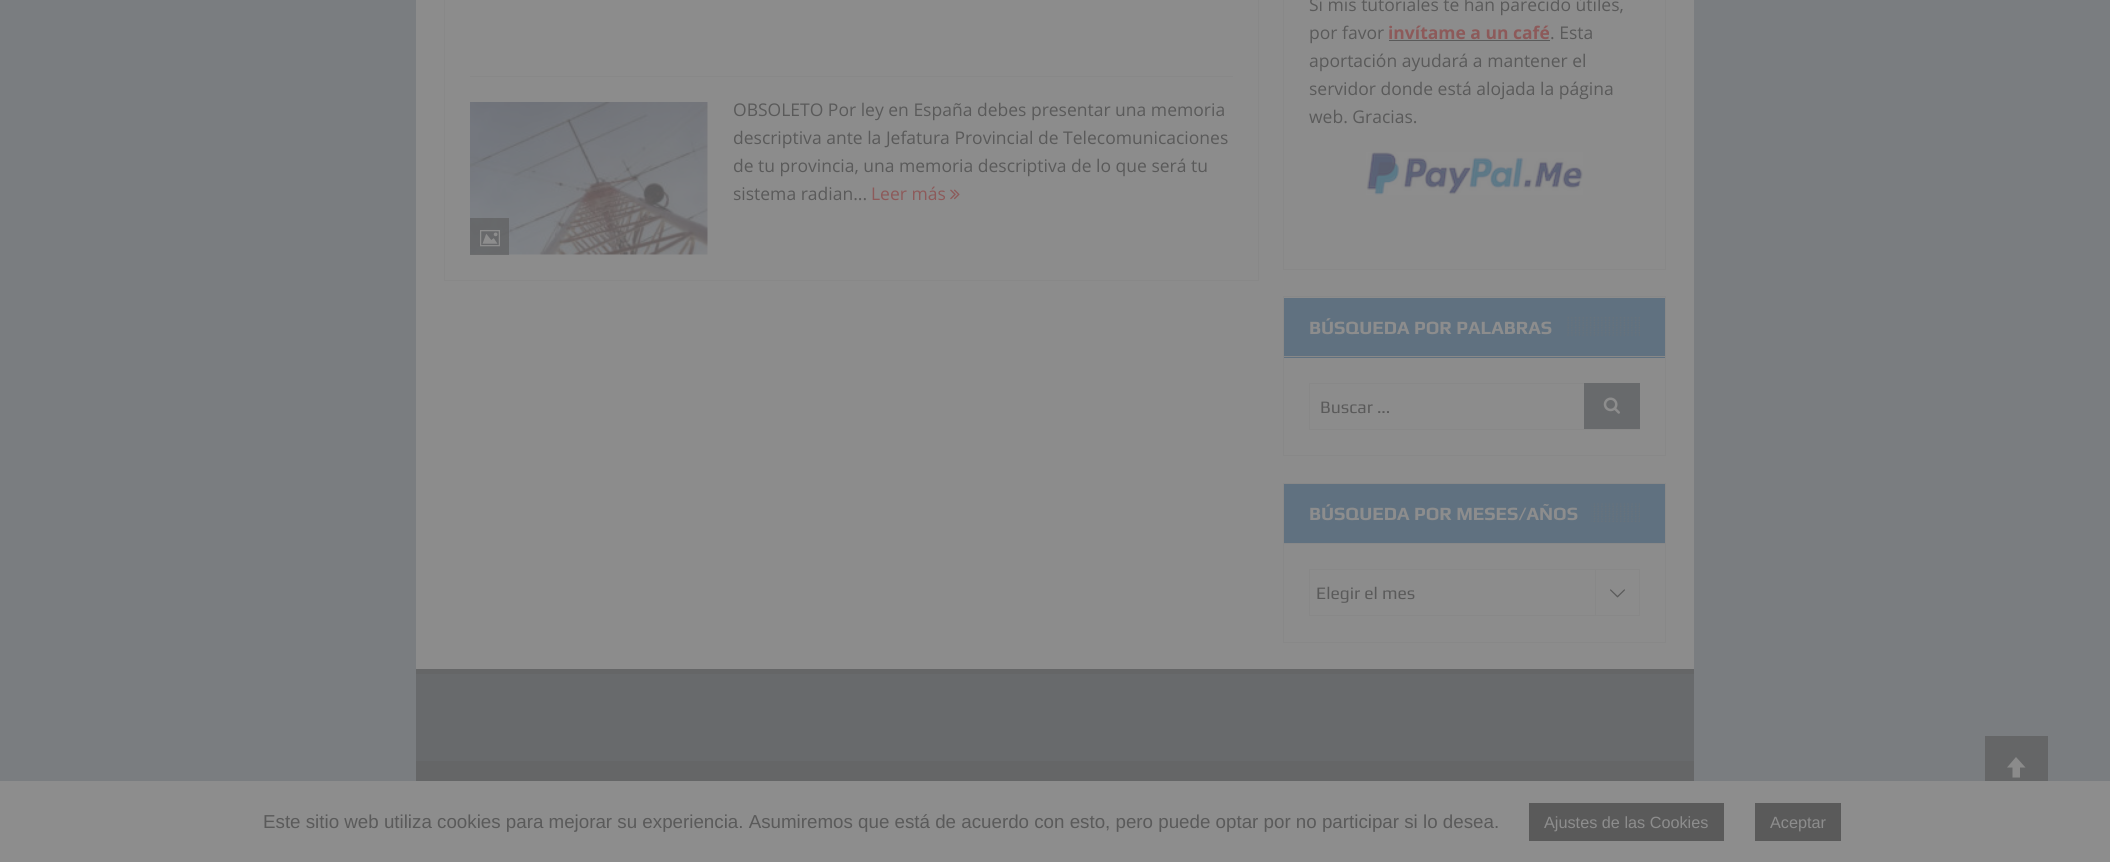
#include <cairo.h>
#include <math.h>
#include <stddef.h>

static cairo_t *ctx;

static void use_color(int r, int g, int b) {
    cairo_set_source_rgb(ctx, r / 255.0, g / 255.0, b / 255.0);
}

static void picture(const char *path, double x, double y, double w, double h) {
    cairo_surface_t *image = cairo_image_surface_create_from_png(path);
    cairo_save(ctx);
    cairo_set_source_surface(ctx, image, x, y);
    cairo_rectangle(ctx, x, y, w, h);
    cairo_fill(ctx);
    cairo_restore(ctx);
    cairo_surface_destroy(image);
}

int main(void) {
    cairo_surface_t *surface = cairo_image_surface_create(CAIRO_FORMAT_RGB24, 2110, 862);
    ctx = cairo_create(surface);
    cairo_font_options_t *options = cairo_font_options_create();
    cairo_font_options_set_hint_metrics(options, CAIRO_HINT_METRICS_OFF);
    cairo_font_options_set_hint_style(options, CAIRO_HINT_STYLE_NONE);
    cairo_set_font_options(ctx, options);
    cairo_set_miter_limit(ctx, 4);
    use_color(122, 125, 128);
    cairo_paint(ctx);
    use_color(140, 140, 140);
    cairo_rectangle(ctx, 416, 0, 1278, 669);
    cairo_fill(ctx);
    cairo_rectangle(ctx, 444.5, -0.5, 814, 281);
    use_color(136, 136, 136);
    cairo_set_line_width(ctx, 1);
    cairo_stroke(ctx);
    cairo_rectangle(ctx, 470, 76, 763, 1);
    cairo_fill(ctx);
    picture("img1.png", 470, 102, 238, 153);
    cairo_set_source_rgba(ctx, 0.353, 0.353, 0.353, 0.6);
    cairo_rectangle(ctx, 470, 218, 39, 37);
    cairo_fill(ctx);
    picture("img2.png", 480, 230, 20, 17);
    cairo_select_font_face(ctx, "Open Sans", CAIRO_FONT_SLANT_NORMAL, CAIRO_FONT_WEIGHT_NORMAL);
    cairo_set_font_size(ctx, 17.5);
    use_color(90, 90, 90);
    cairo_move_to(ctx, 733, 116);
    cairo_show_text(ctx, "OBSOLETO Por ley en España debes presentar una memoria");
    cairo_move_to(ctx, 733, 144);
    cairo_show_text(ctx, "descriptiva ante la Jefatura Provincial de Telecomunicaciones");
    cairo_move_to(ctx, 733, 172);
    cairo_show_text(ctx, "de tu provincia, una memoria descriptiva de lo que será tu");
    cairo_move_to(ctx, 733, 200);
    cairo_show_text(ctx, "sistema radian...");
    use_color(141, 90, 90);
    cairo_move_to(ctx, 871, 200);
    cairo_show_text(ctx, "Leer más");
    picture("img3.png", 950, 189, 10, 11);
    cairo_rectangle(ctx, 1283.5, -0.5, 382, 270);
    use_color(136, 136, 136);
    cairo_stroke(ctx);
    use_color(90, 90, 90);
    cairo_move_to(ctx, 1309, 11);
    cairo_show_text(ctx, "Si mis tutoriales te han parecido útiles,");
    cairo_move_to(ctx, 1309, 39);
    cairo_show_text(ctx, "por favor");
    cairo_select_font_face(ctx, "Open Sans", CAIRO_FONT_SLANT_NORMAL, CAIRO_FONT_WEIGHT_BOLD);
    use_color(141, 90, 90);
    cairo_move_to(ctx, 1388, 39);
    cairo_show_text(ctx, "invítame a un café");
    use_color(90, 90, 90);
    cairo_rectangle(ctx, 1389, 40, 161, 1);
    cairo_fill(ctx);
    cairo_select_font_face(ctx, "Open Sans", CAIRO_FONT_SLANT_NORMAL, CAIRO_FONT_WEIGHT_NORMAL);
    cairo_move_to(ctx, 1550, 39);
    cairo_show_text(ctx, ". Esta");
    cairo_move_to(ctx, 1309, 67);
    cairo_show_text(ctx, "aportación ayudará a mantener el");
    cairo_move_to(ctx, 1309, 95);
    cairo_show_text(ctx, "servidor donde está alojada la página");
    cairo_move_to(ctx, 1309, 123);
    cairo_show_text(ctx, "web. Gracias.");
    picture("img4.png", 1366, 152, 217, 43);
    cairo_rectangle(ctx, 1283.5, 296.5, 382, 159);
    use_color(136, 136, 136);
    cairo_stroke(ctx);
    use_color(96, 113, 128);
    cairo_rectangle(ctx, 1284, 298, 381, 60);
    cairo_fill(ctx);
    use_color(136, 136, 136);
    cairo_rectangle(ctx, 1284, 356, 381, 1);
    cairo_fill(ctx);
    picture("img5.png", 1567, 317, 73, 19);
    cairo_select_font_face(ctx, "Play", CAIRO_FONT_SLANT_NORMAL, CAIRO_FONT_WEIGHT_BOLD);
    cairo_set_font_size(ctx, 18.75);
    use_color(141, 141, 141);
    cairo_move_to(ctx, 1309, 334);
    cairo_show_text(ctx, "BÚSQUEDA POR PALABRAS");
    cairo_rectangle(ctx, 1309.5, 383.5, 330, 46);
    use_color(136, 136, 136);
    cairo_stroke(ctx);
    cairo_select_font_face(ctx, "Play", CAIRO_FONT_SLANT_NORMAL, CAIRO_FONT_WEIGHT_NORMAL);
    cairo_set_font_size(ctx, 17.5);
    use_color(90, 90, 90);
    cairo_move_to(ctx, 1320, 413);
    cairo_show_text(ctx, "Buscar ...");
    use_color(104, 106, 108);
    cairo_rectangle(ctx, 1584, 383, 56, 46);
    cairo_fill(ctx);
    picture("img6.png", 1603, 397, 17, 17);
    cairo_rectangle(ctx, 1283.5, 483.5, 382, 159);
    use_color(136, 136, 136);
    cairo_stroke(ctx);
    use_color(96, 113, 128);
    cairo_rectangle(ctx, 1284, 484, 381, 59);
    cairo_fill(ctx);
    use_color(136, 136, 136);
    cairo_rectangle(ctx, 1284, 543, 381, 1);
    cairo_fill(ctx);
    picture("img7.png", 1591, 503, 49, 19);
    cairo_select_font_face(ctx, "Play", CAIRO_FONT_SLANT_NORMAL, CAIRO_FONT_WEIGHT_BOLD);
    cairo_set_font_size(ctx, 18.75);
    use_color(141, 141, 141);
    cairo_move_to(ctx, 1309, 520);
    cairo_show_text(ctx, "BÚSQUEDA POR MESES/AÑOS");
    cairo_rectangle(ctx, 1309.5, 569.5, 330, 46);
    use_color(136, 136, 136);
    cairo_stroke(ctx);
    cairo_select_font_face(ctx, "Play", CAIRO_FONT_SLANT_NORMAL, CAIRO_FONT_WEIGHT_NORMAL);
    cairo_set_font_size(ctx, 17.5);
    use_color(90, 90, 90);
    cairo_move_to(ctx, 1316, 599);
    cairo_show_text(ctx, "Elegir el mes");
    use_color(136, 136, 136);
    cairo_rectangle(ctx, 1595, 570, 1, 45);
    cairo_fill(ctx);
    picture("img8.png", 1610, 589, 15, 9);
    use_color(104, 106, 108);
    cairo_rectangle(ctx, 416, 674, 1278, 87);
    cairo_fill(ctx);
    use_color(101, 102, 103);
    cairo_rectangle(ctx, 416, 669, 1278, 5);
    cairo_fill(ctx);
    cairo_rectangle(ctx, 416, 761, 1278, 20);
    cairo_fill(ctx);
    cairo_rectangle(ctx, 1985, 736, 63, 45);
    cairo_fill(ctx);
    use_color(139, 139, 139);
    cairo_new_path(ctx);
    cairo_move_to(ctx, 2025.5, 767.5);
    cairo_line_to(ctx, 2020, 767.5);
    cairo_line_to(ctx, 2020, 777.5);
    cairo_line_to(ctx, 2012.5, 777.5);
    cairo_line_to(ctx, 2012.5, 767.5);
    cairo_line_to(ctx, 2007, 767.5);
    cairo_line_to(ctx, 2016, 757);
    cairo_close_path(ctx);
    cairo_fill(ctx);
    use_color(141, 141, 141);
    cairo_rectangle(ctx, 0, 781, 2110, 81);
    cairo_fill(ctx);
    cairo_select_font_face(ctx, "Liberation Sans", CAIRO_FONT_SLANT_NORMAL, CAIRO_FONT_WEIGHT_NORMAL);
    cairo_set_font_size(ctx, 18.75);
    use_color(90, 90, 90);
    cairo_move_to(ctx, 263, 828);
    cairo_show_text(ctx, "Este sitio web utiliza cookies para mejorar su experiencia. Asumiremos que está de acuerdo con esto, pero puede optar por no participar si lo desea.");
    cairo_rectangle(ctx, 1529, 803, 195, 38);
    cairo_fill(ctx);
    cairo_set_font_size(ctx, 16.25);
    use_color(141, 141, 141);
    cairo_move_to(ctx, 1544, 828);
    cairo_show_text(ctx, "Ajustes de las Cookies");
    use_color(90, 90, 90);
    cairo_rectangle(ctx, 1755, 803, 86, 38);
    cairo_fill(ctx);
    use_color(141, 141, 141);
    cairo_move_to(ctx, 1770, 828);
    cairo_show_text(ctx, "Aceptar");
    cairo_surface_write_to_png(surface, "result.png");
    cairo_font_options_destroy(options);
    cairo_destroy(ctx);
    cairo_surface_destroy(surface);
    return 0;
}
